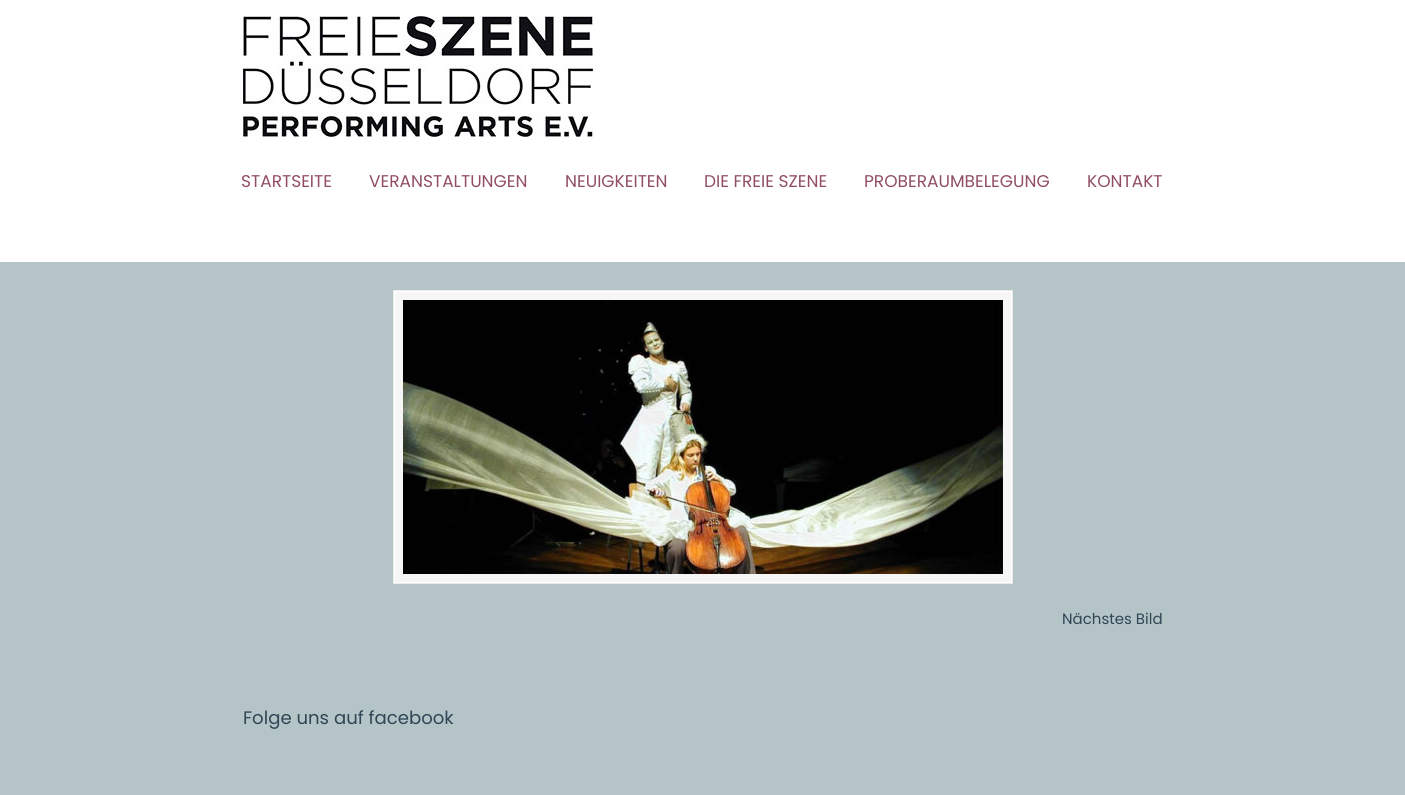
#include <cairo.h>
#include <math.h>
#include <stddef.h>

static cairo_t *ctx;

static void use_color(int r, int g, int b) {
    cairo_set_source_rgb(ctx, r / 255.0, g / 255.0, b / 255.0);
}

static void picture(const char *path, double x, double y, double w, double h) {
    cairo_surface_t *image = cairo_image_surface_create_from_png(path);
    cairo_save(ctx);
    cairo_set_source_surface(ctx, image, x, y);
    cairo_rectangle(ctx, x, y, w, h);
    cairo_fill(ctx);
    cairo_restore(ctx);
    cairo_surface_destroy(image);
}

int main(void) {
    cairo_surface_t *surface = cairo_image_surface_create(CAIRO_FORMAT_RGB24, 1405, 795);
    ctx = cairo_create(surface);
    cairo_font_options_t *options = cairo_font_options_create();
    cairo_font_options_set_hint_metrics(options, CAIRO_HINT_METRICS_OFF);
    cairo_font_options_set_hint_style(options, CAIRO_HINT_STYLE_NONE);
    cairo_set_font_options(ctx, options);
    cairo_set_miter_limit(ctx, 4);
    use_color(255, 255, 255);
    cairo_paint(ctx);
    picture("img1.png", 243, 16, 350, 121);
    cairo_select_font_face(ctx, "Poppins", CAIRO_FONT_SLANT_NORMAL, CAIRO_FONT_WEIGHT_NORMAL);
    cairo_set_font_size(ctx, 17);
    use_color(145, 78, 99);
    cairo_move_to(ctx, 241, 187);
    cairo_show_text(ctx, "STARTSEITE");
    cairo_move_to(ctx, 369, 187);
    cairo_show_text(ctx, "VERANSTALTUNGEN");
    cairo_move_to(ctx, 565, 187);
    cairo_show_text(ctx, "NEUIGKEITEN");
    cairo_move_to(ctx, 704, 187);
    cairo_show_text(ctx, "DIE FREIE SZENE");
    cairo_move_to(ctx, 864, 187);
    cairo_show_text(ctx, "PROBERAUMBELEGUNG");
    cairo_move_to(ctx, 1087, 187);
    cairo_show_text(ctx, "KONTAKT");
    use_color(180, 196, 199);
    cairo_rectangle(ctx, 0, 262, 1405, 533);
    cairo_fill(ctx);
    use_color(246, 246, 246);
    cairo_rectangle(ctx, 395, 292, 616, 290);
    cairo_fill(ctx);
    cairo_rectangle(ctx, 393.5, 290.5, 619, 293);
    use_color(234, 234, 234);
    cairo_set_line_width(ctx, 1);
    cairo_stroke(ctx);
    cairo_rectangle(ctx, 394.5, 291.5, 617, 291);
    use_color(255, 255, 255);
    cairo_stroke(ctx);
    picture("img2.png", 403, 300, 600, 274);
    cairo_set_font_size(ctx, 15);
    use_color(47, 70, 85);
    cairo_move_to(ctx, 1062, 624);
    cairo_show_text(ctx, "Nächstes Bild");
    cairo_set_font_size(ctx, 18.1);
    cairo_move_to(ctx, 243, 724);
    cairo_show_text(ctx, "Folge uns auf facebook");
    cairo_surface_write_to_png(surface, "result.png");
    cairo_font_options_destroy(options);
    cairo_destroy(ctx);
    cairo_surface_destroy(surface);
    return 0;
}
